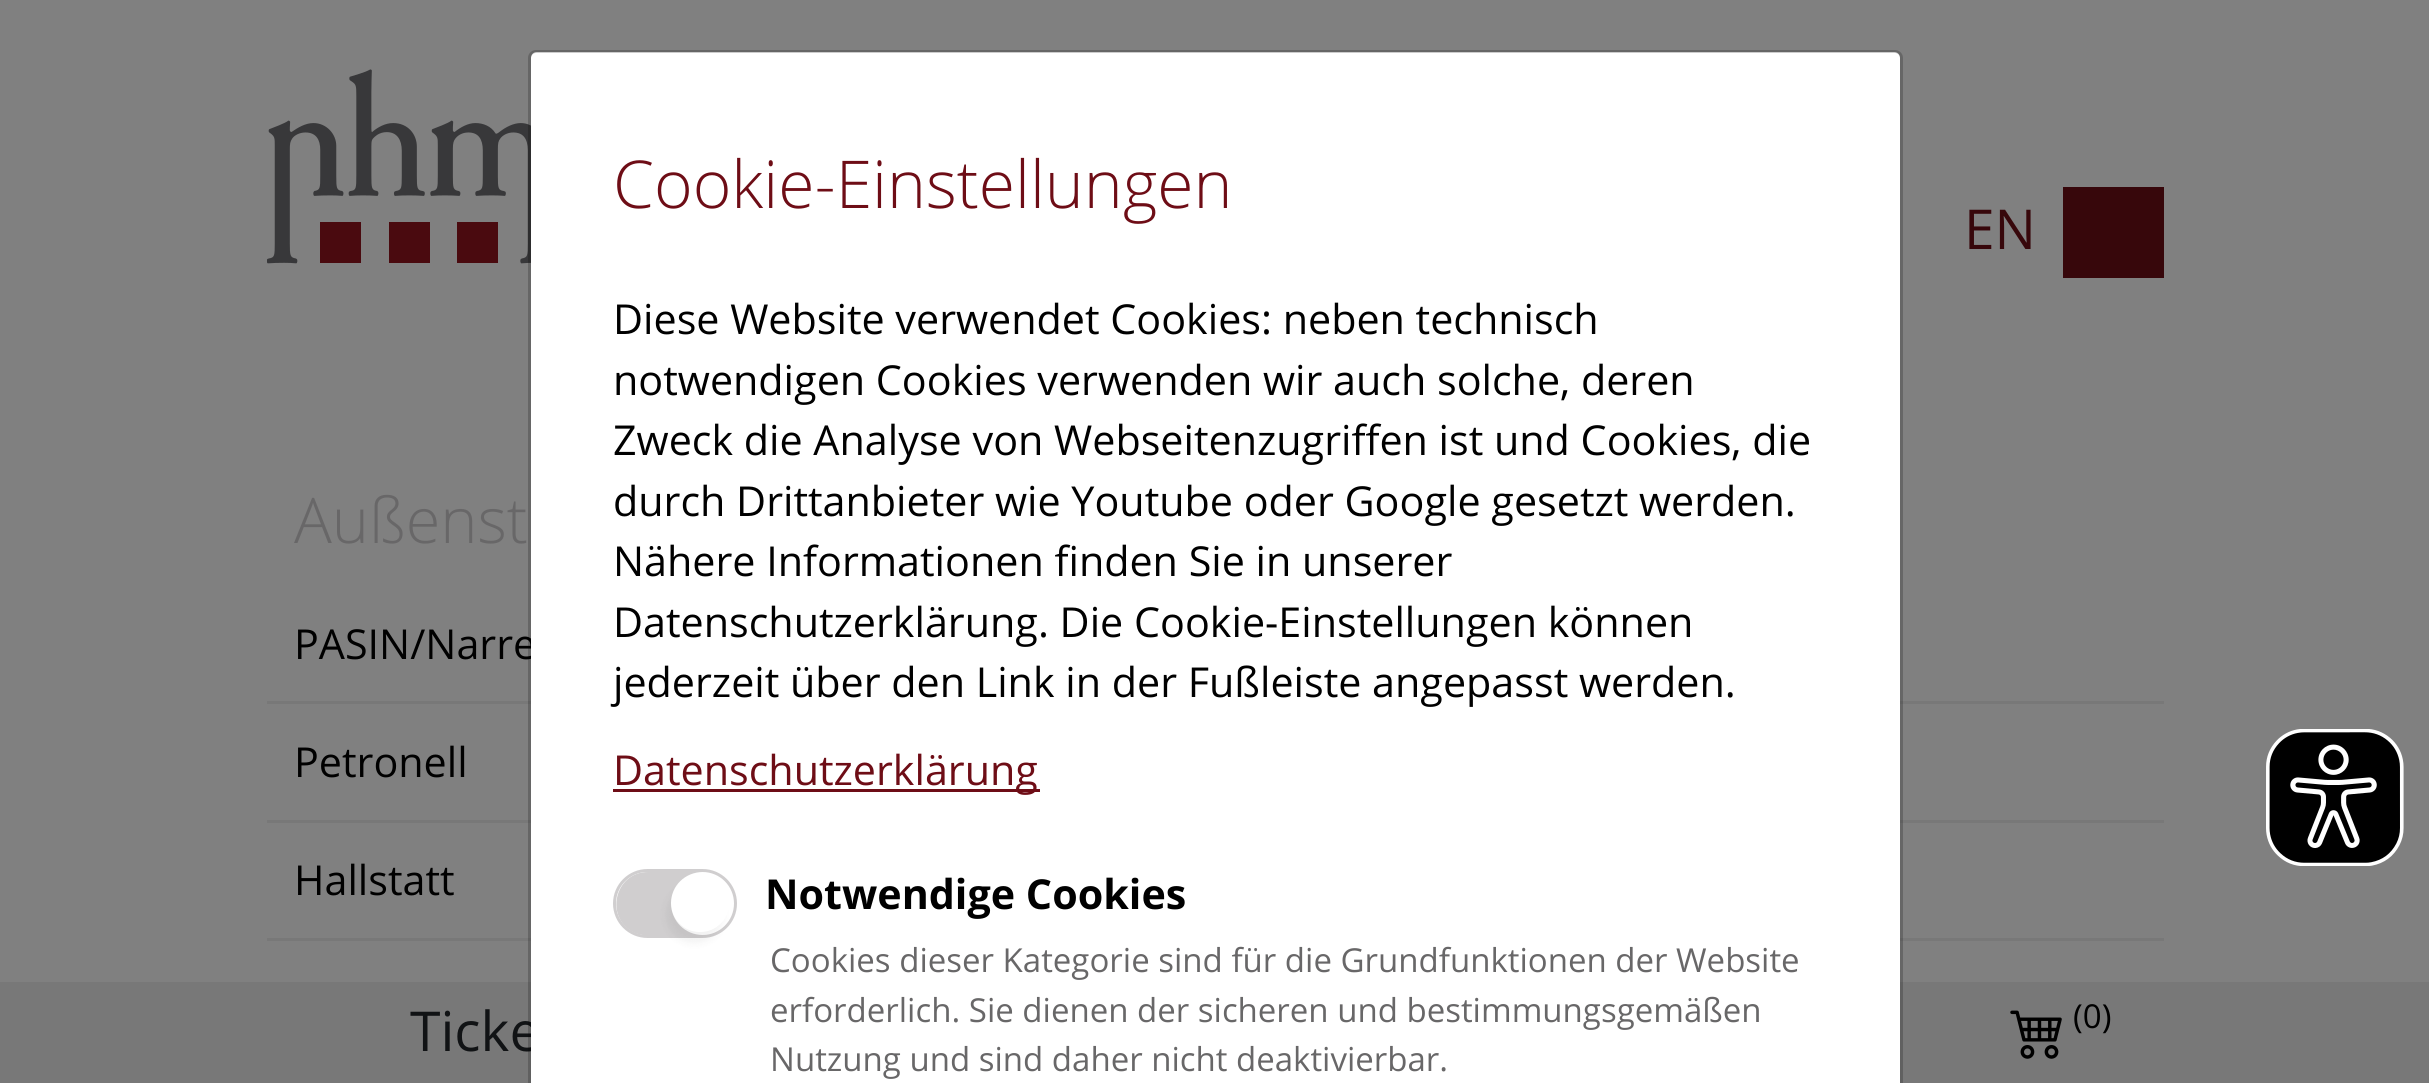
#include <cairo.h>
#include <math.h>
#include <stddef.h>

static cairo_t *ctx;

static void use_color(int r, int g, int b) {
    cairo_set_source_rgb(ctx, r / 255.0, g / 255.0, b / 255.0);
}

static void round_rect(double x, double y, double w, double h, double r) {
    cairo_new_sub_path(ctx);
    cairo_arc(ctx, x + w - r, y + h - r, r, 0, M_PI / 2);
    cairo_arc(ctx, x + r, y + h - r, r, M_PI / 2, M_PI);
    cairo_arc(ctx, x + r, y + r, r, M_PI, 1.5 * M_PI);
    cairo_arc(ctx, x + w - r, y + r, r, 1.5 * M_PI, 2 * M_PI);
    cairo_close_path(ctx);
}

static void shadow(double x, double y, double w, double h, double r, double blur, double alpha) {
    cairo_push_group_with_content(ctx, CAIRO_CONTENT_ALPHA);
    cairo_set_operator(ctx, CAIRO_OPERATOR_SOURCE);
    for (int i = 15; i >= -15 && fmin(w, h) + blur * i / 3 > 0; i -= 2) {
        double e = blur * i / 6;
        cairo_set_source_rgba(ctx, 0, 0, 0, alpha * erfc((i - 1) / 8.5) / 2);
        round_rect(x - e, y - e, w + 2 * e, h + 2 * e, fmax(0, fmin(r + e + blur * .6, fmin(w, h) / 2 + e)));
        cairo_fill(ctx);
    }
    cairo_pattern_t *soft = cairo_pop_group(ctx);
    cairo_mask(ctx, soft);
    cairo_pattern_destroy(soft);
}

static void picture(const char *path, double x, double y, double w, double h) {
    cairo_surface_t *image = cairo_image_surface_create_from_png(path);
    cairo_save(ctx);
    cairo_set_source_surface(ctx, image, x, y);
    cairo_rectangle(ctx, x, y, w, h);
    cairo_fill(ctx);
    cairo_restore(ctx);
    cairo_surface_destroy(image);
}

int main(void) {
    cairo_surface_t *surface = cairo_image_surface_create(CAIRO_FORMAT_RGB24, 2429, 1083);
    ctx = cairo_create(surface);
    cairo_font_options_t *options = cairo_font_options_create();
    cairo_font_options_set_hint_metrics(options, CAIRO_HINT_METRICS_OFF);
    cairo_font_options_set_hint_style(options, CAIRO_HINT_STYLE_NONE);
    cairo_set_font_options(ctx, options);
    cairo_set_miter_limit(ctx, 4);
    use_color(128, 128, 128);
    cairo_paint(ctx);
    use_color(120, 120, 120);
    cairo_rectangle(ctx, 267, 701, 1897, 3);
    cairo_fill(ctx);
    cairo_select_font_face(ctx, "Open Sans", CAIRO_FONT_SLANT_NORMAL, CAIRO_FONT_WEIGHT_NORMAL);
    cairo_set_font_size(ctx, 41.25);
    use_color(0, 0, 0);
    cairo_move_to(ctx, 294, 659);
    cairo_show_text(ctx, "PASIN/Narre");
    use_color(120, 120, 120);
    cairo_rectangle(ctx, 267, 820, 1897, 3);
    cairo_fill(ctx);
    cairo_rectangle(ctx, 267, 938, 1897, 3);
    cairo_fill(ctx);
    cairo_rectangle(ctx, 0, 982, 2429, 101);
    cairo_fill(ctx);
    cairo_set_font_size(ctx, 55);
    use_color(17, 19, 21);
    cairo_move_to(ctx, 410, 1051);
    cairo_show_text(ctx, "Ticke");
    use_color(255, 255, 255);
    cairo_new_path(ctx);
    cairo_move_to(ctx, 537, 52);
    cairo_line_to(ctx, 1894, 52);
    cairo_curve_to(ctx, 1897.5, 52, 1900, 54.5, 1900, 58);
    cairo_line_to(ctx, 1900, 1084);
    cairo_line_to(ctx, 531, 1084);
    cairo_line_to(ctx, 531, 58);
    cairo_curve_to(ctx, 531, 54.5, 533.5, 52, 537, 52);
    cairo_close_path(ctx);
    cairo_fill(ctx);
    picture("img1.png", 267, 69, 264, 195);
    round_rect(529.5, 51.5, 1372, 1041, 6.5);
    cairo_set_source_rgba(ctx, 0, 0, 0, 0.2);
    cairo_set_line_width(ctx, 3);
    cairo_stroke(ctx);
    cairo_select_font_face(ctx, "Open Sans Light", CAIRO_FONT_SLANT_NORMAL, CAIRO_FONT_WEIGHT_NORMAL);
    cairo_set_font_size(ctx, 66);
    use_color(110, 13, 22);
    cairo_move_to(ctx, 613, 208);
    cairo_show_text(ctx, "Cookie-Einstellungen");
    cairo_select_font_face(ctx, "Open Sans", CAIRO_FONT_SLANT_NORMAL, CAIRO_FONT_WEIGHT_NORMAL);
    cairo_set_font_size(ctx, 41.25);
    use_color(0, 0, 0);
    cairo_move_to(ctx, 613, 334);
    cairo_show_text(ctx, "Diese Website verwendet Cookies: neben technisch");
    cairo_move_to(ctx, 613, 395);
    cairo_show_text(ctx, "notwendigen Cookies verwenden wir auch solche, deren");
    cairo_move_to(ctx, 613, 455);
    cairo_show_text(ctx, "Zweck die Analyse von Webseitenzugriffen ist und Cookies, die");
    cairo_move_to(ctx, 613, 516);
    cairo_show_text(ctx, "durch Drittanbieter wie Youtube oder Google gesetzt werden.");
    cairo_move_to(ctx, 613, 576);
    cairo_show_text(ctx, "Nähere Informationen finden Sie in unserer");
    cairo_move_to(ctx, 613, 637);
    cairo_show_text(ctx, "Datenschutzerklärung. Die Cookie-Einstellungen können");
    cairo_move_to(ctx, 613, 697);
    cairo_show_text(ctx, "jederzeit über den Link in der Fußleiste angepasst werden.");
    use_color(110, 13, 22);
    cairo_rectangle(ctx, 613, 789, 427, 3);
    cairo_fill(ctx);
    cairo_move_to(ctx, 613, 785);
    cairo_show_text(ctx, "Datenschutzerklärung");
    use_color(208, 206, 207);
    cairo_new_path(ctx);
    cairo_move_to(ctx, 648, 872);
    cairo_curve_to(ctx, 614, 872, 604, 919, 635, 933);
    cairo_curve_to(ctx, 645, 937, 656, 935, 666, 935);
    cairo_line_to(ctx, 703, 935);
    cairo_curve_to(ctx, 685, 935, 671, 921, 671, 903);
    cairo_curve_to(ctx, 671, 886, 685, 872, 703, 872);
    cairo_line_to(ctx, 702, 872);
    cairo_close_path(ctx);
    cairo_fill(ctx);
    round_rect(614.5, 870.5, 121, 66, 33);
    cairo_stroke(ctx);
    cairo_save(ctx);
    cairo_set_fill_rule(ctx, CAIRO_FILL_RULE_EVEN_ODD);
    cairo_new_path(ctx);
    cairo_move_to(ctx, 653, 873);
    cairo_line_to(ctx, 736, 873);
    cairo_line_to(ctx, 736, 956);
    cairo_line_to(ctx, 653, 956);
    cairo_close_path(ctx);
    cairo_move_to(ctx, 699.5, 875);
    cairo_line_to(ctx, 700.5, 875);
    cairo_curve_to(ctx, 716, 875, 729, 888, 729, 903.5);
    cairo_curve_to(ctx, 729, 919, 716, 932, 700.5, 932);
    cairo_line_to(ctx, 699.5, 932);
    cairo_curve_to(ctx, 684, 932, 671, 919, 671, 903.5);
    cairo_curve_to(ctx, 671, 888, 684, 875, 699.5, 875);
    cairo_close_path(ctx);
    cairo_clip(ctx);
    use_color(0, 0, 0);
    shadow(666, 886, 57, 57, 28.5, 4, 0.05);
    cairo_restore(ctx);
    cairo_select_font_face(ctx, "Open Sans", CAIRO_FONT_SLANT_NORMAL, CAIRO_FONT_WEIGHT_BOLD);
    use_color(0, 0, 0);
    cairo_move_to(ctx, 765, 909);
    cairo_show_text(ctx, "Notwendige Cookies");
    cairo_select_font_face(ctx, "Open Sans", CAIRO_FONT_SLANT_NORMAL, CAIRO_FONT_WEIGHT_NORMAL);
    cairo_set_font_size(ctx, 33);
    use_color(104, 103, 104);
    cairo_move_to(ctx, 770, 972);
    cairo_show_text(ctx, "Cookies dieser Kategorie sind für die Grundfunktionen der Website");
    cairo_move_to(ctx, 770, 1022);
    cairo_show_text(ctx, "erforderlich. Sie dienen der sicheren und bestimmungsgemäßen");
    cairo_move_to(ctx, 770, 1071);
    cairo_show_text(ctx, "Nutzung und sind daher nicht deaktivierbar.");
    cairo_set_font_size(ctx, 55);
    use_color(55, 7, 11);
    cairo_move_to(ctx, 1964, 249);
    cairo_show_text(ctx, "EN");
    cairo_rectangle(ctx, 2063, 187, 101, 91);
    cairo_fill(ctx);
    cairo_select_font_face(ctx, "Open Sans Light", CAIRO_FONT_SLANT_NORMAL, CAIRO_FONT_WEIGHT_NORMAL);
    cairo_set_font_size(ctx, 63);
    use_color(104, 103, 104);
    cairo_move_to(ctx, 294, 543);
    cairo_show_text(ctx, "Außenst");
    cairo_select_font_face(ctx, "Open Sans", CAIRO_FONT_SLANT_NORMAL, CAIRO_FONT_WEIGHT_NORMAL);
    cairo_set_font_size(ctx, 41.25);
    use_color(0, 0, 0);
    cairo_move_to(ctx, 294, 777);
    cairo_show_text(ctx, "Petronell");
    cairo_move_to(ctx, 294, 895);
    cairo_show_text(ctx, "Hallstatt");
    picture("img2.png", 2010, 1010, 52, 49);
    cairo_set_font_size(ctx, 33);
    cairo_move_to(ctx, 2073, 1028);
    cairo_show_text(ctx, "(0)");
    picture("img3.png", 2266, 729, 138, 137);
    cairo_surface_write_to_png(surface, "result.png");
    cairo_font_options_destroy(options);
    cairo_destroy(ctx);
    cairo_surface_destroy(surface);
    return 0;
}
